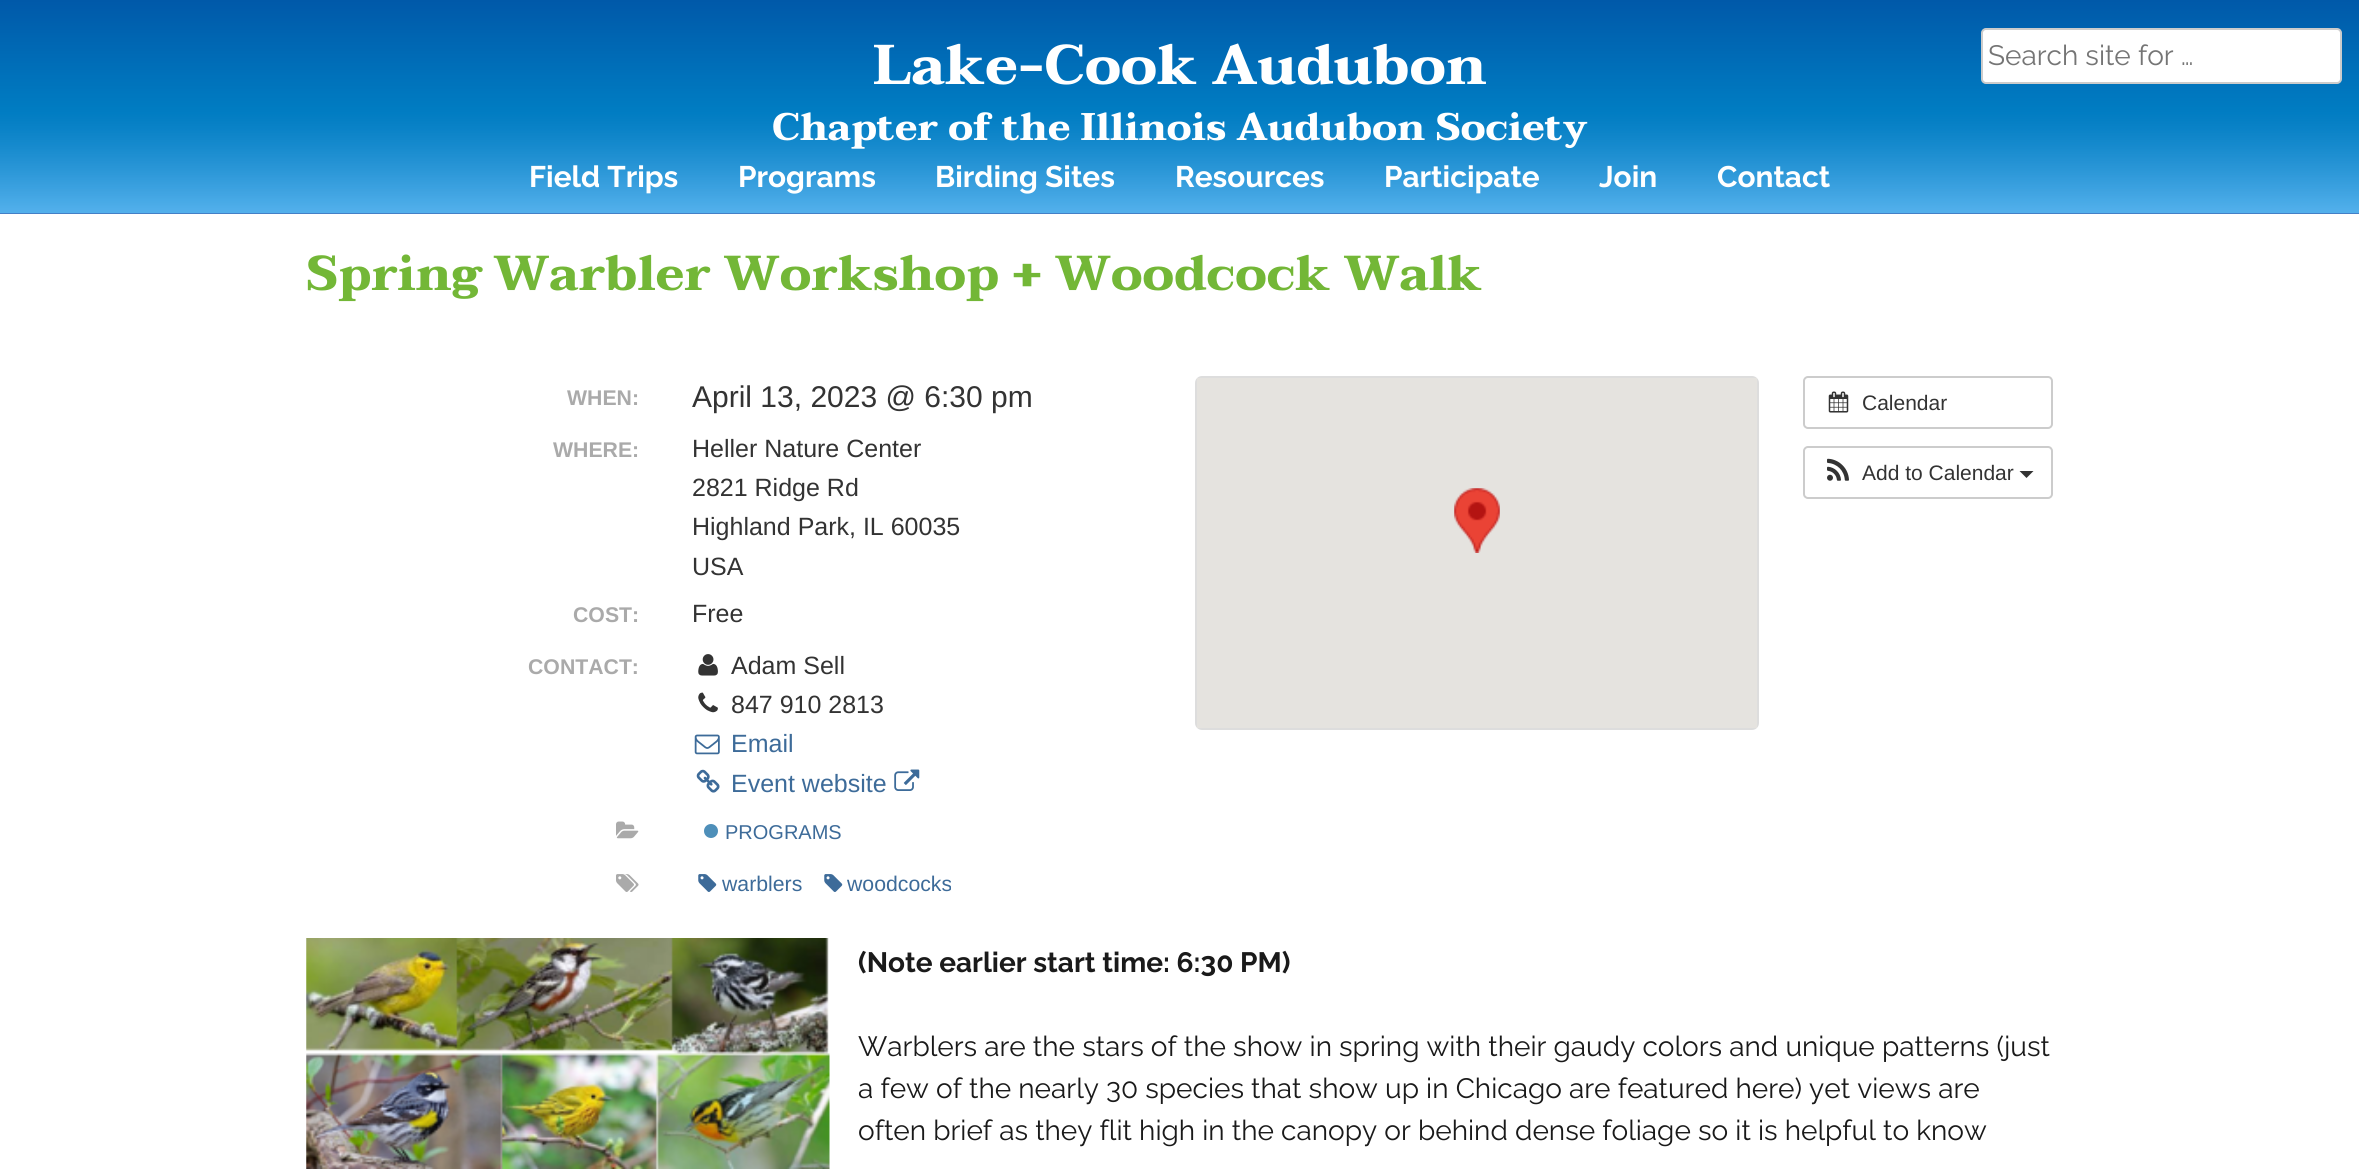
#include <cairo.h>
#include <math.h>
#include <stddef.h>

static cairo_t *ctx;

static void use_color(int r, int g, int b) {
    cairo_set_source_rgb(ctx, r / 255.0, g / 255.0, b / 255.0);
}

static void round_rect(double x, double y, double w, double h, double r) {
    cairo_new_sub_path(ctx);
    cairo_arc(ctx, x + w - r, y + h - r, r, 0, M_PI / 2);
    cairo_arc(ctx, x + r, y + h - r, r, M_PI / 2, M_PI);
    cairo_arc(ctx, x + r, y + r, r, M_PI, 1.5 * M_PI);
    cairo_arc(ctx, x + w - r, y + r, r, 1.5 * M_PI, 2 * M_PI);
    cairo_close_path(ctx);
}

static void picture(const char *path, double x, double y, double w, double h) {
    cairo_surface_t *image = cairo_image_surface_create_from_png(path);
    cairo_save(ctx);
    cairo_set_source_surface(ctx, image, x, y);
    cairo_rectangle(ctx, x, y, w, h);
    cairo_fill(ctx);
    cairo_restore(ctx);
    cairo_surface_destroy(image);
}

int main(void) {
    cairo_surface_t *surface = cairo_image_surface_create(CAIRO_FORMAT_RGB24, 2359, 1172);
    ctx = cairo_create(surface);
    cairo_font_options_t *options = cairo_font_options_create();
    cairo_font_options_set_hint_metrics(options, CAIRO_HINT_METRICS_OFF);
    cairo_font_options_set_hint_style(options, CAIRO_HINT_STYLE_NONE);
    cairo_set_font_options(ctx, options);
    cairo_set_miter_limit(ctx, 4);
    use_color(255, 255, 255);
    cairo_paint(ctx);
    use_color(52, 77, 158);
    cairo_rectangle(ctx, 0, 213, 2359, 1);
    cairo_fill(ctx);
    picture("img1.png", 0, 0, 2359, 214);
    cairo_select_font_face(ctx, "Taviraj", CAIRO_FONT_SLANT_NORMAL, CAIRO_FONT_WEIGHT_BOLD);
    cairo_set_font_size(ctx, 56);
    use_color(255, 255, 255);
    cairo_move_to(ctx, 873, 84);
    cairo_show_text(ctx, "Lake-Cook Audubon");
    round_rect(1982, 29, 359, 54, 4);
    cairo_fill_preserve(ctx);
    use_color(204, 204, 204);
    cairo_stroke(ctx);
    cairo_select_font_face(ctx, "Raleway", CAIRO_FONT_SLANT_NORMAL, CAIRO_FONT_WEIGHT_NORMAL);
    cairo_set_font_size(ctx, 28);
    use_color(117, 117, 117);
    cairo_move_to(ctx, 1988, 65);
    cairo_show_text(ctx, "Search site for …");
    cairo_select_font_face(ctx, "Taviraj", CAIRO_FONT_SLANT_NORMAL, CAIRO_FONT_WEIGHT_BOLD);
    cairo_set_font_size(ctx, 38.5);
    use_color(255, 255, 255);
    cairo_move_to(ctx, 772, 140);
    cairo_show_text(ctx, "Chapter of the Illinois Audubon Society");
    cairo_select_font_face(ctx, "Raleway", CAIRO_FONT_SLANT_NORMAL, CAIRO_FONT_WEIGHT_BOLD);
    cairo_set_font_size(ctx, 29.75);
    cairo_move_to(ctx, 529, 187);
    cairo_show_text(ctx, "Field Trips");
    cairo_move_to(ctx, 738, 187);
    cairo_show_text(ctx, "Programs");
    cairo_move_to(ctx, 935, 187);
    cairo_show_text(ctx, "Birding Sites");
    cairo_move_to(ctx, 1175, 187);
    cairo_show_text(ctx, "Resources");
    cairo_move_to(ctx, 1384, 187);
    cairo_show_text(ctx, "Participate");
    cairo_move_to(ctx, 1599, 187);
    cairo_show_text(ctx, "Join");
    cairo_move_to(ctx, 1717, 187);
    cairo_show_text(ctx, "Contact");
    cairo_select_font_face(ctx, "Taviraj", CAIRO_FONT_SLANT_NORMAL, CAIRO_FONT_WEIGHT_BOLD);
    cairo_set_font_size(ctx, 49);
    use_color(115, 183, 55);
    cairo_move_to(ctx, 306, 290);
    cairo_show_text(ctx, "Spring Warbler Workshop + Woodcock Walk");
    cairo_select_font_face(ctx, "Liberation Sans", CAIRO_FONT_SLANT_NORMAL, CAIRO_FONT_WEIGHT_BOLD);
    cairo_set_font_size(ctx, 21.25);
    use_color(170, 170, 170);
    cairo_move_to(ctx, 567, 405);
    cairo_show_text(ctx, "WHEN:");
    cairo_select_font_face(ctx, "Liberation Sans", CAIRO_FONT_SLANT_NORMAL, CAIRO_FONT_WEIGHT_NORMAL);
    cairo_set_font_size(ctx, 30);
    use_color(51, 51, 51);
    cairo_move_to(ctx, 692, 407);
    cairo_show_text(ctx, "April 13, 2023 @ 6:30 pm");
    cairo_select_font_face(ctx, "Liberation Sans", CAIRO_FONT_SLANT_NORMAL, CAIRO_FONT_WEIGHT_BOLD);
    cairo_set_font_size(ctx, 21.25);
    use_color(170, 170, 170);
    cairo_move_to(ctx, 553, 457);
    cairo_show_text(ctx, "WHERE:");
    cairo_select_font_face(ctx, "Liberation Sans", CAIRO_FONT_SLANT_NORMAL, CAIRO_FONT_WEIGHT_NORMAL);
    cairo_set_font_size(ctx, 25);
    use_color(51, 51, 51);
    cairo_move_to(ctx, 692, 457);
    cairo_show_text(ctx, "Heller Nature Center");
    cairo_move_to(ctx, 692, 496);
    cairo_show_text(ctx, "2821 Ridge Rd");
    cairo_move_to(ctx, 692, 535);
    cairo_show_text(ctx, "Highland Park, IL 60035");
    cairo_move_to(ctx, 692, 575);
    cairo_show_text(ctx, "USA");
    cairo_select_font_face(ctx, "Liberation Sans", CAIRO_FONT_SLANT_NORMAL, CAIRO_FONT_WEIGHT_BOLD);
    cairo_set_font_size(ctx, 21.25);
    use_color(170, 170, 170);
    cairo_move_to(ctx, 573, 622);
    cairo_show_text(ctx, "COST:");
    cairo_select_font_face(ctx, "Liberation Sans", CAIRO_FONT_SLANT_NORMAL, CAIRO_FONT_WEIGHT_NORMAL);
    cairo_set_font_size(ctx, 25);
    use_color(51, 51, 51);
    cairo_move_to(ctx, 692, 622);
    cairo_show_text(ctx, "Free");
    cairo_select_font_face(ctx, "Liberation Sans", CAIRO_FONT_SLANT_NORMAL, CAIRO_FONT_WEIGHT_BOLD);
    cairo_set_font_size(ctx, 21.25);
    use_color(170, 170, 170);
    cairo_move_to(ctx, 528, 674);
    cairo_show_text(ctx, "CONTACT:");
    picture("img2.png", 698, 654, 20, 22);
    cairo_select_font_face(ctx, "Liberation Sans", CAIRO_FONT_SLANT_NORMAL, CAIRO_FONT_WEIGHT_NORMAL);
    cairo_set_font_size(ctx, 25);
    use_color(51, 51, 51);
    cairo_move_to(ctx, 731, 674);
    cairo_show_text(ctx, "Adam Sell");
    picture("img3.png", 698, 692, 20, 21);
    cairo_move_to(ctx, 731, 713);
    cairo_show_text(ctx, "847 910 2813");
    picture("img4.png", 694, 734, 26, 21);
    use_color(61, 107, 153);
    cairo_move_to(ctx, 731, 752);
    cairo_show_text(ctx, "Email");
    picture("img5.png", 696, 769, 24, 24);
    cairo_move_to(ctx, 731, 792);
    cairo_show_text(ctx, "Event website");
    picture("img6.png", 894, 769, 26, 22);
    picture("img7.png", 616, 821, 23, 18);
    use_color(78, 143, 185);
    cairo_arc(ctx, 711, 831, 7, 0, 2 * M_PI);
    cairo_fill(ctx);
    cairo_set_font_size(ctx, 20);
    use_color(61, 107, 153);
    cairo_move_to(ctx, 725, 839);
    cairo_show_text(ctx, "PROGRAMS");
    picture("img8.png", 616, 874, 23, 18);
    picture("img9.png", 698, 874, 19, 18);
    cairo_set_font_size(ctx, 21.25);
    cairo_move_to(ctx, 722, 891);
    cairo_show_text(ctx, "warblers");
    picture("img9.png", 824, 874, 19, 18);
    cairo_move_to(ctx, 847, 891);
    cairo_show_text(ctx, "woodcocks");
    round_rect(1196, 377, 562, 352, 6);
    use_color(221, 221, 221);
    cairo_stroke(ctx);
    use_color(229, 227, 223);
    cairo_rectangle(ctx, 1197, 378, 560, 350);
    cairo_fill(ctx);
    picture("img10.png", 1454, 488, 46, 65);
    round_rect(1804, 377, 248, 51, 4);
    use_color(204, 204, 204);
    cairo_stroke(ctx);
    picture("img11.png", 1828, 391, 21, 22);
    cairo_set_font_size(ctx, 21);
    use_color(51, 51, 51);
    cairo_move_to(ctx, 1862, 410);
    cairo_show_text(ctx, "Calendar");
    round_rect(1804, 447, 248, 51, 4);
    use_color(204, 204, 204);
    cairo_stroke(ctx);
    picture("img12.png", 1827, 458, 22, 23);
    use_color(51, 51, 51);
    cairo_move_to(ctx, 1862, 480);
    cairo_show_text(ctx, "Add to Calendar");
    cairo_new_path(ctx);
    cairo_move_to(ctx, 2019.5, 471);
    cairo_line_to(ctx, 2033.5, 471);
    cairo_line_to(ctx, 2026.5, 478);
    cairo_close_path(ctx);
    cairo_fill(ctx);
    picture("img13.png", 306, 938, 524, 231);
    cairo_select_font_face(ctx, "Raleway", CAIRO_FONT_SLANT_NORMAL, CAIRO_FONT_WEIGHT_BOLD);
    cairo_set_font_size(ctx, 28);
    use_color(26, 26, 26);
    cairo_move_to(ctx, 858, 972);
    cairo_show_text(ctx, "(Note earlier start time: 6:30 PM)");
    cairo_select_font_face(ctx, "Raleway", CAIRO_FONT_SLANT_NORMAL, CAIRO_FONT_WEIGHT_NORMAL);
    cairo_move_to(ctx, 858, 1056);
    cairo_show_text(ctx, "Warblers are the stars of the show in spring with their gaudy colors and unique patterns (just");
    cairo_move_to(ctx, 858, 1098);
    cairo_show_text(ctx, "a few of the nearly 30 species that show up in Chicago are featured here) yet views are");
    cairo_move_to(ctx, 858, 1140);
    cairo_show_text(ctx, "often brief as they flit high in the canopy or behind dense foliage so it is helpful to know");
    cairo_surface_write_to_png(surface, "result.png");
    cairo_font_options_destroy(options);
    cairo_destroy(ctx);
    cairo_surface_destroy(surface);
    return 0;
}
